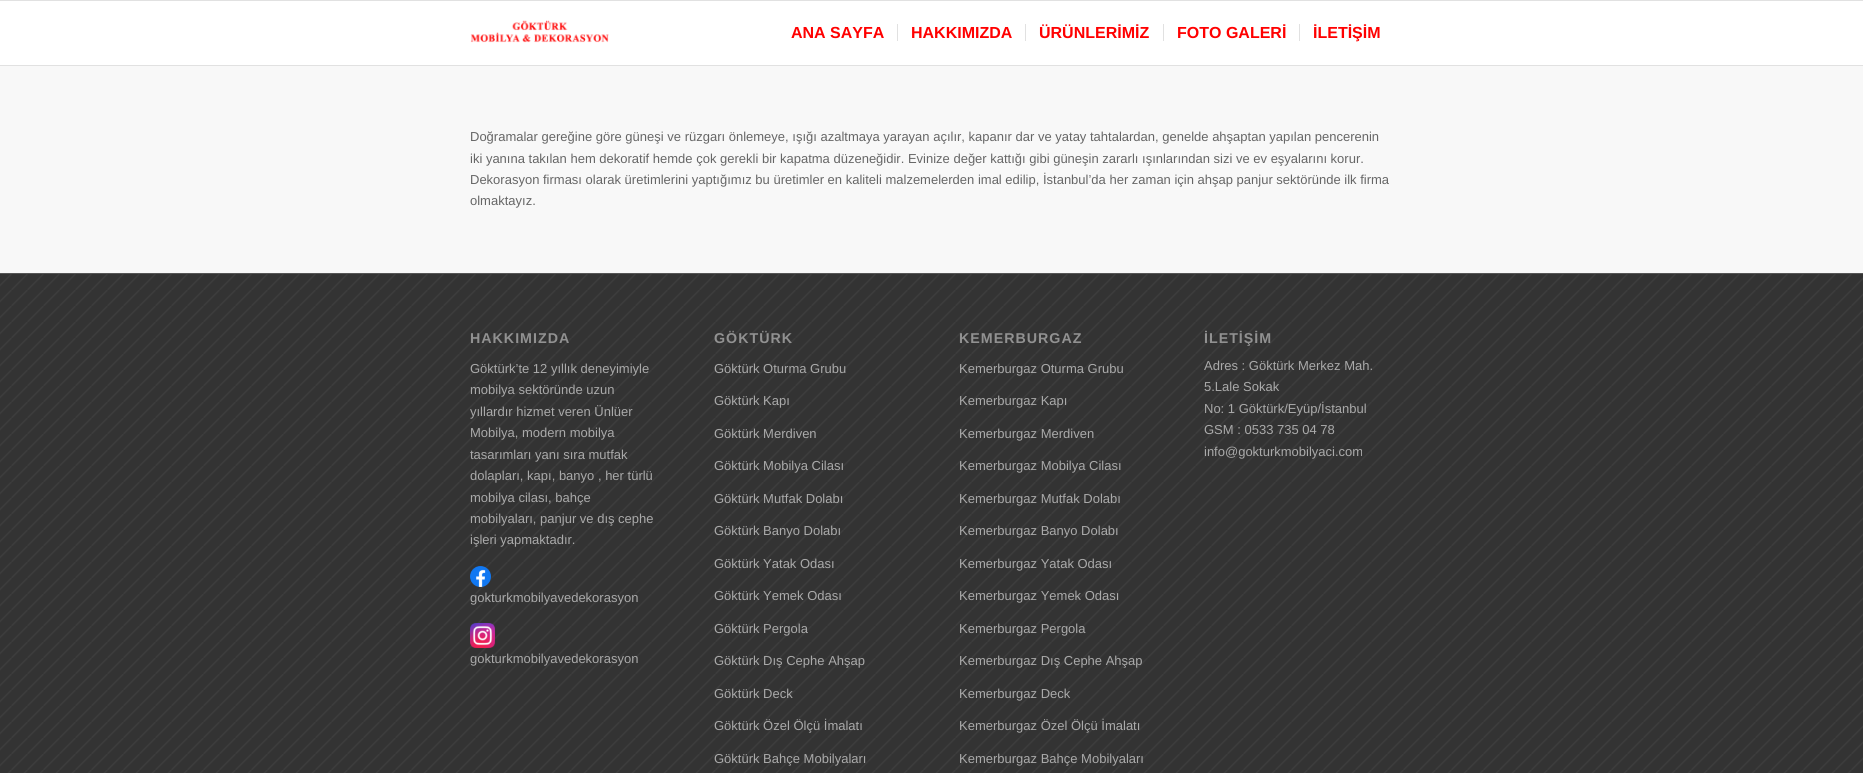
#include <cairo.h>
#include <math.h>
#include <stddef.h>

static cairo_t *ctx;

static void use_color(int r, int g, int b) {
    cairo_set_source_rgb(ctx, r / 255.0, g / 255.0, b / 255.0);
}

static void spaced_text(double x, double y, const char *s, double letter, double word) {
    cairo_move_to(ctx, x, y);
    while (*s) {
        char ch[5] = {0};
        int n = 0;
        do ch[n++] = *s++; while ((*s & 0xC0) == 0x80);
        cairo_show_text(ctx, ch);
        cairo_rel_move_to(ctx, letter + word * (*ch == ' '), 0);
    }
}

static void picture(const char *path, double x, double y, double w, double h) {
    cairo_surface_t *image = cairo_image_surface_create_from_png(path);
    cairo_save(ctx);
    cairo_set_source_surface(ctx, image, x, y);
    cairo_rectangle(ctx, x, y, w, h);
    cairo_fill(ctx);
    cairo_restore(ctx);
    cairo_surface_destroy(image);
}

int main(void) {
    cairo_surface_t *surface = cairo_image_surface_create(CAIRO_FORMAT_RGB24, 1863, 773);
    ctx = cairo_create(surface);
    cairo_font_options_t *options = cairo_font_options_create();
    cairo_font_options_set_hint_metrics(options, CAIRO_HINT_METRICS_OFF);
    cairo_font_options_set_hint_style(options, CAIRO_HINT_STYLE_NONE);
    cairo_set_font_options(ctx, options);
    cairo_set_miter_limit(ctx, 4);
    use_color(255, 255, 255);
    cairo_paint(ctx);
    use_color(225, 225, 225);
    cairo_rectangle(ctx, 0, 0, 1863, 1);
    cairo_fill(ctx);
    cairo_rectangle(ctx, 0, 65, 1863, 1);
    cairo_fill(ctx);
    picture("img1.png", 470, 20, 139, 23);
    cairo_select_font_face(ctx, "Liberation Sans", CAIRO_FONT_SLANT_NORMAL, CAIRO_FONT_WEIGHT_BOLD);
    cairo_set_font_size(ctx, 16);
    use_color(255, 0, 0);
    cairo_move_to(ctx, 791, 38);
    cairo_show_text(ctx, "ANA SAYFA");
    cairo_move_to(ctx, 911, 38);
    cairo_show_text(ctx, "HAKKIMIZDA");
    use_color(225, 225, 225);
    cairo_rectangle(ctx, 897, 24, 1, 17);
    cairo_fill(ctx);
    use_color(255, 0, 0);
    cairo_move_to(ctx, 1039, 38);
    cairo_show_text(ctx, "ÜRÜNLERİMİZ");
    use_color(225, 225, 225);
    cairo_rectangle(ctx, 1025, 24, 1, 17);
    cairo_fill(ctx);
    use_color(255, 0, 0);
    cairo_move_to(ctx, 1177, 38);
    cairo_show_text(ctx, "FOTO GALERİ");
    use_color(225, 225, 225);
    cairo_rectangle(ctx, 1163, 24, 1, 17);
    cairo_fill(ctx);
    use_color(255, 0, 0);
    cairo_move_to(ctx, 1313, 38);
    cairo_show_text(ctx, "İLETİŞİM");
    use_color(225, 225, 225);
    cairo_rectangle(ctx, 1299, 24, 1, 17);
    cairo_fill(ctx);
    use_color(248, 248, 248);
    cairo_rectangle(ctx, 0, 66, 1863, 207);
    cairo_fill(ctx);
    cairo_select_font_face(ctx, "Liberation Sans", CAIRO_FONT_SLANT_NORMAL, CAIRO_FONT_WEIGHT_NORMAL);
    cairo_set_font_size(ctx, 13);
    use_color(102, 102, 102);
    cairo_move_to(ctx, 470, 141);
    cairo_show_text(ctx, "Doğramalar gereğine göre güneşi ve rüzgarı önlemeye, ışığı azaltmaya yarayan açılır, kapanır dar ve yatay tahtalardan, genelde ahşaptan yapılan pencerenin");
    cairo_move_to(ctx, 470, 163);
    cairo_show_text(ctx, "iki yanına takılan hem dekoratif hemde çok gerekli bir kapatma düzeneğidir. Evinize değer kattığı gibi güneşin zararlı ışınlarından sizi ve ev eşyalarını korur.");
    cairo_move_to(ctx, 470, 184);
    cairo_show_text(ctx, "Dekorasyon firması olarak üretimlerini yaptığımız bu üretimler en kaliteli malzemelerden imal edilip, İstanbul’da her zaman için ahşap panjur sektöründe ilk firma");
    cairo_move_to(ctx, 470, 205);
    cairo_show_text(ctx, "olmaktayız.");
    use_color(51, 51, 51);
    cairo_rectangle(ctx, 0, 274, 1863, 499);
    cairo_fill(ctx);
    picture("img2.png", 0, 274, 1863, 499);
    use_color(85, 85, 85);
    cairo_rectangle(ctx, 0, 273, 1863, 1);
    cairo_fill(ctx);
    cairo_select_font_face(ctx, "Liberation Sans", CAIRO_FONT_SLANT_NORMAL, CAIRO_FONT_WEIGHT_BOLD);
    cairo_set_font_size(ctx, 14.25);
    use_color(145, 145, 145);
    spaced_text(470, 343, "HAKKIMIZDA", 1, 0);
    cairo_select_font_face(ctx, "Liberation Sans", CAIRO_FONT_SLANT_NORMAL, CAIRO_FONT_WEIGHT_NORMAL);
    cairo_set_font_size(ctx, 13);
    use_color(170, 170, 170);
    cairo_move_to(ctx, 470, 373);
    cairo_show_text(ctx, "Göktürk’te 12 yıllık deneyimiyle");
    cairo_move_to(ctx, 470, 394);
    cairo_show_text(ctx, "mobilya sektöründe uzun");
    cairo_move_to(ctx, 470, 416);
    cairo_show_text(ctx, "yıllardır hizmet veren Ünlüer");
    cairo_move_to(ctx, 470, 437);
    cairo_show_text(ctx, "Mobilya, modern mobilya");
    cairo_move_to(ctx, 470, 459);
    cairo_show_text(ctx, "tasarımları yanı sıra mutfak");
    cairo_move_to(ctx, 470, 480);
    cairo_show_text(ctx, "dolapları, kapı, banyo , her türlü");
    cairo_move_to(ctx, 470, 502);
    cairo_show_text(ctx, "mobilya cilası, bahçe");
    cairo_move_to(ctx, 470, 523);
    cairo_show_text(ctx, "mobilyaları, panjur ve dış cephe");
    cairo_move_to(ctx, 470, 544);
    cairo_show_text(ctx, "işleri yapmaktadır.");
    picture("img3.png", 470, 566, 21, 21);
    cairo_move_to(ctx, 470, 602);
    cairo_show_text(ctx, "gokturkmobilyavedekorasyon");
    picture("img4.png", 470, 623, 25, 25);
    cairo_move_to(ctx, 470, 663);
    cairo_show_text(ctx, "gokturkmobilyavedekorasyon");
    cairo_select_font_face(ctx, "Liberation Sans", CAIRO_FONT_SLANT_NORMAL, CAIRO_FONT_WEIGHT_BOLD);
    cairo_set_font_size(ctx, 14.25);
    use_color(145, 145, 145);
    spaced_text(714, 343, "GÖKTÜRK", 1, 0);
    cairo_select_font_face(ctx, "Liberation Sans", CAIRO_FONT_SLANT_NORMAL, CAIRO_FONT_WEIGHT_NORMAL);
    cairo_set_font_size(ctx, 13);
    use_color(170, 170, 170);
    cairo_move_to(ctx, 714, 373);
    cairo_show_text(ctx, "Göktürk Oturma Grubu");
    cairo_move_to(ctx, 714, 405);
    cairo_show_text(ctx, "Göktürk Kapı");
    cairo_move_to(ctx, 714, 438);
    cairo_show_text(ctx, "Göktürk Merdiven");
    cairo_move_to(ctx, 714, 470);
    cairo_show_text(ctx, "Göktürk Mobilya Cilası");
    cairo_move_to(ctx, 714, 503);
    cairo_show_text(ctx, "Göktürk Mutfak Dolabı");
    cairo_move_to(ctx, 714, 535);
    cairo_show_text(ctx, "Göktürk Banyo Dolabı");
    cairo_move_to(ctx, 714, 568);
    cairo_show_text(ctx, "Göktürk Yatak Odası");
    cairo_move_to(ctx, 714, 600);
    cairo_show_text(ctx, "Göktürk Yemek Odası");
    cairo_move_to(ctx, 714, 633);
    cairo_show_text(ctx, "Göktürk Pergola");
    cairo_move_to(ctx, 714, 665);
    cairo_show_text(ctx, "Göktürk Dış Cephe Ahşap");
    cairo_move_to(ctx, 714, 698);
    cairo_show_text(ctx, "Göktürk Deck");
    cairo_move_to(ctx, 714, 730);
    cairo_show_text(ctx, "Göktürk Özel Ölçü İmalatı");
    cairo_move_to(ctx, 714, 763);
    cairo_show_text(ctx, "Göktürk Bahçe Mobilyaları");
    cairo_select_font_face(ctx, "Liberation Sans", CAIRO_FONT_SLANT_NORMAL, CAIRO_FONT_WEIGHT_BOLD);
    cairo_set_font_size(ctx, 14.25);
    use_color(145, 145, 145);
    spaced_text(959, 343, "KEMERBURGAZ", 1, 0);
    cairo_select_font_face(ctx, "Liberation Sans", CAIRO_FONT_SLANT_NORMAL, CAIRO_FONT_WEIGHT_NORMAL);
    cairo_set_font_size(ctx, 13);
    use_color(170, 170, 170);
    cairo_move_to(ctx, 959, 373);
    cairo_show_text(ctx, "Kemerburgaz Oturma Grubu");
    cairo_move_to(ctx, 959, 405);
    cairo_show_text(ctx, "Kemerburgaz Kapı");
    cairo_move_to(ctx, 959, 438);
    cairo_show_text(ctx, "Kemerburgaz Merdiven");
    cairo_move_to(ctx, 959, 470);
    cairo_show_text(ctx, "Kemerburgaz Mobilya Cilası");
    cairo_move_to(ctx, 959, 503);
    cairo_show_text(ctx, "Kemerburgaz Mutfak Dolabı");
    cairo_move_to(ctx, 959, 535);
    cairo_show_text(ctx, "Kemerburgaz Banyo Dolabı");
    cairo_move_to(ctx, 959, 568);
    cairo_show_text(ctx, "Kemerburgaz Yatak Odası");
    cairo_move_to(ctx, 959, 600);
    cairo_show_text(ctx, "Kemerburgaz Yemek Odası");
    cairo_move_to(ctx, 959, 633);
    cairo_show_text(ctx, "Kemerburgaz Pergola");
    cairo_move_to(ctx, 959, 665);
    cairo_show_text(ctx, "Kemerburgaz Dış Cephe Ahşap");
    cairo_move_to(ctx, 959, 698);
    cairo_show_text(ctx, "Kemerburgaz Deck");
    cairo_move_to(ctx, 959, 730);
    cairo_show_text(ctx, "Kemerburgaz Özel Ölçü İmalatı");
    cairo_move_to(ctx, 959, 763);
    cairo_show_text(ctx, "Kemerburgaz Bahçe Mobilyaları");
    cairo_select_font_face(ctx, "Liberation Sans", CAIRO_FONT_SLANT_NORMAL, CAIRO_FONT_WEIGHT_BOLD);
    cairo_set_font_size(ctx, 14.25);
    use_color(145, 145, 145);
    spaced_text(1204, 343, "İLETİŞİM", 1, 0);
    cairo_select_font_face(ctx, "Liberation Sans", CAIRO_FONT_SLANT_NORMAL, CAIRO_FONT_WEIGHT_NORMAL);
    cairo_set_font_size(ctx, 13);
    use_color(170, 170, 170);
    cairo_move_to(ctx, 1204, 370);
    cairo_show_text(ctx, "Adres : Göktürk Merkez Mah.");
    cairo_move_to(ctx, 1204, 391);
    cairo_show_text(ctx, "5.Lale Sokak");
    cairo_move_to(ctx, 1204, 413);
    cairo_show_text(ctx, "No: 1 Göktürk/Eyüp/İstanbul");
    cairo_move_to(ctx, 1204, 434);
    cairo_show_text(ctx, "GSM : 0533 735 04 78");
    cairo_move_to(ctx, 1204, 456);
    cairo_show_text(ctx, "info@gokturkmobilyaci.com");
    cairo_surface_write_to_png(surface, "result.png");
    cairo_font_options_destroy(options);
    cairo_destroy(ctx);
    cairo_surface_destroy(surface);
    return 0;
}
